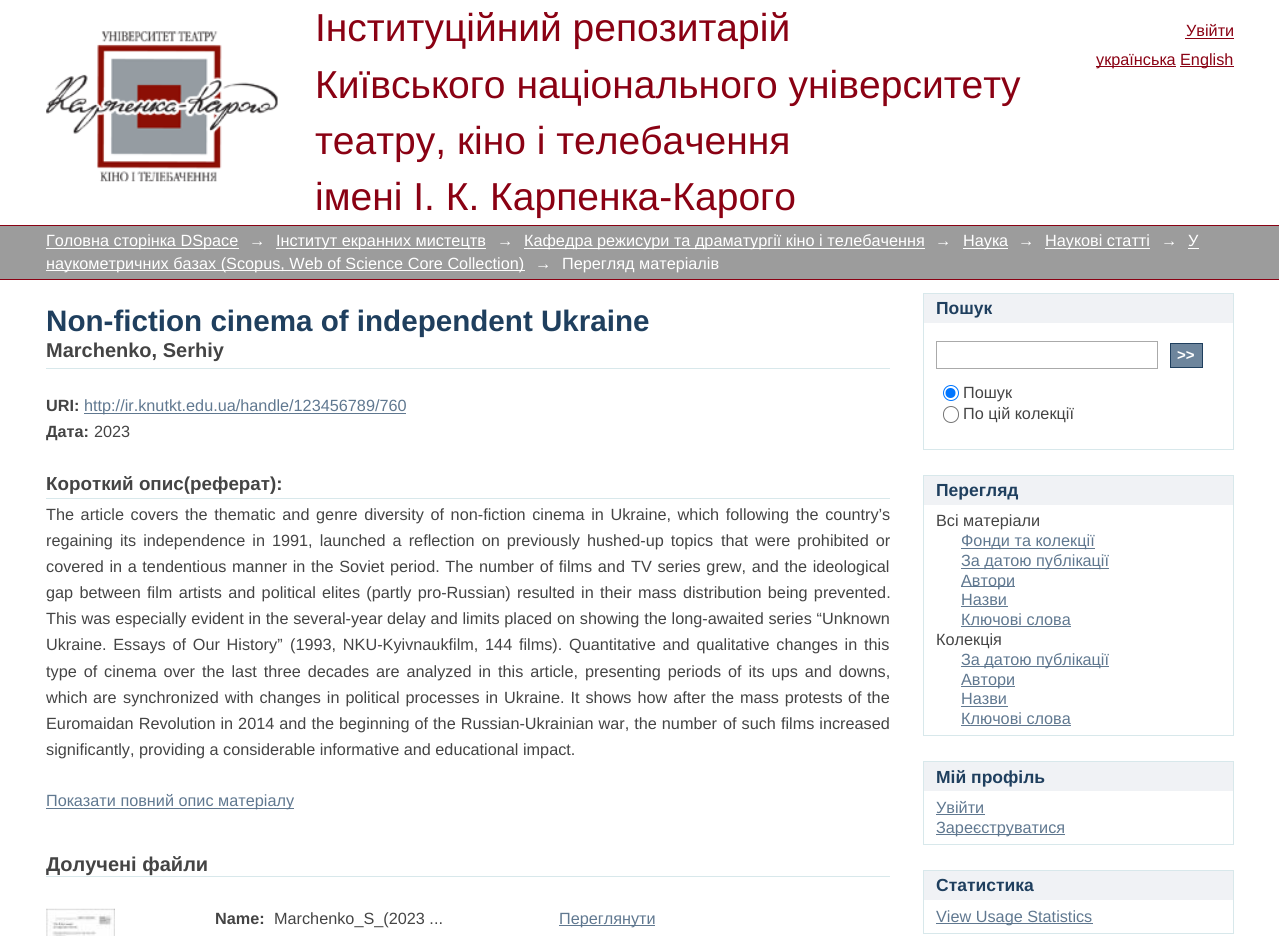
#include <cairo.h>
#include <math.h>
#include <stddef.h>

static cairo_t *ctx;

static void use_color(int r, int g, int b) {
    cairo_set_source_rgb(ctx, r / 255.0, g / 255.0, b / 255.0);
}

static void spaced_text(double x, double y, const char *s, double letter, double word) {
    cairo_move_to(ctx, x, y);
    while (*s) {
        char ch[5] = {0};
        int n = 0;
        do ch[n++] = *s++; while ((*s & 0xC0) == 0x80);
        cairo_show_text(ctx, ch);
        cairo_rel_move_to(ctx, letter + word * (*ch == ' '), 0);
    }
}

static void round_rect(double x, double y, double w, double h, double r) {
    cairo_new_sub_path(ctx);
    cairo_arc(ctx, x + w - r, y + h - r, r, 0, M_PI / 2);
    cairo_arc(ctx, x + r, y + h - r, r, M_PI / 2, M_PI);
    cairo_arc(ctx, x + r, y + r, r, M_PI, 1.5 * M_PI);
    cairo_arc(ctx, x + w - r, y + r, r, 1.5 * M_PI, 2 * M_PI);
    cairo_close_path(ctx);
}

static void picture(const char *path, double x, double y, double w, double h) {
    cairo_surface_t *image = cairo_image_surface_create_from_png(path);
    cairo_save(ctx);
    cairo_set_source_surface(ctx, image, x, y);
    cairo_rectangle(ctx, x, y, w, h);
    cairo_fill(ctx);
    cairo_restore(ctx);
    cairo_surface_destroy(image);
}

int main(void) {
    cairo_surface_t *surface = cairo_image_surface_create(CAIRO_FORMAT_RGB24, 1279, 936);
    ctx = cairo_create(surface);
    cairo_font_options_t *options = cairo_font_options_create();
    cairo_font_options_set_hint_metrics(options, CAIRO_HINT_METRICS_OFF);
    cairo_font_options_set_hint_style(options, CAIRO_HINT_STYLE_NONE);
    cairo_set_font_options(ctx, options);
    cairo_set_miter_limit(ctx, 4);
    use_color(255, 255, 255);
    cairo_paint(ctx);
    picture("img1.png", 46, 31, 232, 151);
    cairo_select_font_face(ctx, "Liberation Sans", CAIRO_FONT_SLANT_NORMAL, CAIRO_FONT_WEIGHT_NORMAL);
    cairo_set_font_size(ctx, 39);
    use_color(138, 1, 19);
    cairo_move_to(ctx, 315, 41);
    cairo_show_text(ctx, "Інституційний репозитарій");
    cairo_move_to(ctx, 315, 98);
    cairo_show_text(ctx, "Київського національного університету");
    cairo_move_to(ctx, 315, 154);
    cairo_show_text(ctx, "театру, кіно і телебачення");
    cairo_move_to(ctx, 315, 210);
    cairo_show_text(ctx, "імені І. К. Карпенка-Карого");
    cairo_set_font_size(ctx, 16.25);
    cairo_move_to(ctx, 1186, 36);
    cairo_show_text(ctx, "Увійти");
    cairo_rectangle(ctx, 1185, 38, 49, 1);
    cairo_fill(ctx);
    cairo_rectangle(ctx, 1096, 66, 80, 1);
    cairo_fill(ctx);
    cairo_move_to(ctx, 1096, 65);
    cairo_show_text(ctx, "українська");
    cairo_rectangle(ctx, 1180, 66, 54, 1);
    cairo_fill(ctx);
    cairo_move_to(ctx, 1180, 65);
    cairo_show_text(ctx, "English");
    use_color(156, 156, 156);
    cairo_rectangle(ctx, 0, 226, 1279, 53);
    cairo_fill(ctx);
    use_color(138, 1, 19);
    cairo_rectangle(ctx, 0, 225, 1279, 1);
    cairo_fill(ctx);
    cairo_rectangle(ctx, 0, 279, 1279, 1);
    cairo_fill(ctx);
    use_color(255, 255, 255);
    cairo_rectangle(ctx, 46, 248, 193, 1);
    cairo_fill(ctx);
    cairo_move_to(ctx, 46, 246);
    cairo_show_text(ctx, "Головна сторінка DSpace");
    cairo_move_to(ctx, 249, 246);
    cairo_show_text(ctx, "→");
    cairo_rectangle(ctx, 276, 248, 210, 1);
    cairo_fill(ctx);
    cairo_move_to(ctx, 276, 246);
    cairo_show_text(ctx, "Інститут екранних мистецтв");
    cairo_move_to(ctx, 497, 246);
    cairo_show_text(ctx, "→");
    cairo_rectangle(ctx, 524, 248, 401, 1);
    cairo_fill(ctx);
    cairo_move_to(ctx, 524, 246);
    cairo_show_text(ctx, "Кафедра режисури та драматургії кіно і телебачення");
    cairo_move_to(ctx, 935, 246);
    cairo_show_text(ctx, "→");
    cairo_rectangle(ctx, 963, 248, 45, 1);
    cairo_fill(ctx);
    cairo_move_to(ctx, 963, 246);
    cairo_show_text(ctx, "Наука");
    cairo_move_to(ctx, 1018, 246);
    cairo_show_text(ctx, "→");
    cairo_rectangle(ctx, 1045, 248, 105, 1);
    cairo_fill(ctx);
    cairo_move_to(ctx, 1045, 246);
    cairo_show_text(ctx, "Наукові статті");
    cairo_move_to(ctx, 1161, 246);
    cairo_show_text(ctx, "→");
    cairo_move_to(ctx, 1188, 246);
    cairo_show_text(ctx, "У");
    cairo_rectangle(ctx, 1188, 248, 11, 1);
    cairo_fill(ctx);
    cairo_rectangle(ctx, 46, 270, 479, 1);
    cairo_fill(ctx);
    cairo_move_to(ctx, 46, 269);
    cairo_show_text(ctx, "наукометричних базах (Scopus, Web of Science Core Collection)");
    cairo_move_to(ctx, 535, 269);
    cairo_show_text(ctx, "→");
    cairo_move_to(ctx, 562, 269);
    cairo_show_text(ctx, "Перегляд матеріалів");
    cairo_select_font_face(ctx, "Liberation Sans", CAIRO_FONT_SLANT_NORMAL, CAIRO_FONT_WEIGHT_BOLD);
    cairo_set_font_size(ctx, 29.6);
    use_color(31, 63, 94);
    cairo_move_to(ctx, 46, 331);
    cairo_show_text(ctx, "Non-fiction cinema of independent Ukraine");
    use_color(216, 232, 235);
    cairo_rectangle(ctx, 46, 368, 844, 1);
    cairo_fill(ctx);
    cairo_set_font_size(ctx, 20);
    use_color(68, 68, 68);
    cairo_move_to(ctx, 46, 357);
    cairo_show_text(ctx, "Marchenko, Serhiy");
    cairo_set_font_size(ctx, 16.25);
    cairo_move_to(ctx, 46, 411);
    cairo_show_text(ctx, "URI:");
    use_color(96, 120, 144);
    cairo_rectangle(ctx, 84, 413, 322, 1);
    cairo_fill(ctx);
    cairo_select_font_face(ctx, "Liberation Sans", CAIRO_FONT_SLANT_NORMAL, CAIRO_FONT_WEIGHT_NORMAL);
    cairo_move_to(ctx, 84, 411);
    cairo_show_text(ctx, "http://ir.knutkt.edu.ua/handle/123456789/760");
    cairo_select_font_face(ctx, "Liberation Sans", CAIRO_FONT_SLANT_NORMAL, CAIRO_FONT_WEIGHT_BOLD);
    use_color(68, 68, 68);
    cairo_move_to(ctx, 46, 437);
    cairo_show_text(ctx, "Дата:");
    cairo_select_font_face(ctx, "Liberation Sans", CAIRO_FONT_SLANT_NORMAL, CAIRO_FONT_WEIGHT_NORMAL);
    cairo_move_to(ctx, 94, 437);
    cairo_show_text(ctx, "2023");
    use_color(216, 232, 235);
    cairo_rectangle(ctx, 46, 498, 844, 1);
    cairo_fill(ctx);
    cairo_select_font_face(ctx, "Liberation Sans", CAIRO_FONT_SLANT_NORMAL, CAIRO_FONT_WEIGHT_BOLD);
    cairo_set_font_size(ctx, 18.8);
    use_color(68, 68, 68);
    cairo_move_to(ctx, 46, 490);
    cairo_show_text(ctx, "Короткий опис(реферат):");
    cairo_select_font_face(ctx, "Liberation Sans", CAIRO_FONT_SLANT_NORMAL, CAIRO_FONT_WEIGHT_NORMAL);
    cairo_set_font_size(ctx, 16.25);
    spaced_text(46, 520, "The article covers the thematic and genre diversity of non-fiction cinema in Ukraine, which following", 0, 2.1);
    spaced_text(796, 520, "the country’s", 0, 2.1);
    spaced_text(46, 546, "regaining its independence in 1991, launched a reflection on previously hushed-up topics", 0, 2.5);
    spaced_text(721, 546, "that were prohibited or", 0, 2.5);
    spaced_text(46, 572, "covered in a tendentious manner in the Soviet period. The number of films and", 0, 1.1);
    spaced_text(631, 572, "TV series grew, and the ideological", 0, 1.1);
    spaced_text(46, 598, "gap between film artists and political elites (partly pro-Russian)", 0, 1.75);
    spaced_text(517, 598, "resulted in their mass distribution being prevented.", 0, 1.75);
    spaced_text(46, 624, "This was especially evident in the several-year", 0, 0.25);
    spaced_text(387, 624, "delay and limits placed on showing the long-awaited series “Unknown", 0, 0.25);
    spaced_text(46, 650, "Ukraine. Essays of Our History”", 0, 2.25);
    spaced_text(290, 650, "(1993, NKU-Kyivnaukfilm, 144 films). Quantitative and qualitative changes in this", 0, 2.25);
    spaced_text(46, 677, "type of cinema over", 0, 2.4);
    spaced_text(202, 677, "the last three decades are analyzed in this article, presenting periods of its ups and downs,", 0, 2.4);
    spaced_text(46, 703, "which are", 0, 1);
    spaced_text(123, 703, "synchronized with changes in political processes in Ukraine. It shows how after the mass protests", 0, 1.4);
    spaced_text(848, 703, "of the", 0, 1);
    spaced_text(46, 729, "Euromaidan Revolution in 2014 and the beginning of the Russian-Ukrainian war, the number", 0, 0.5);
    spaced_text(723, 729, "of such films increased", 0, 0.5);
    cairo_move_to(ctx, 46, 755);
    cairo_show_text(ctx, "significantly, providing a considerable informative and educational impact.");
    use_color(96, 120, 144);
    cairo_rectangle(ctx, 46, 808, 248, 1);
    cairo_fill(ctx);
    cairo_move_to(ctx, 46, 806);
    cairo_show_text(ctx, "Показати повний опис матеріалу");
    use_color(216, 232, 235);
    cairo_rectangle(ctx, 46, 876, 844, 1);
    cairo_fill(ctx);
    cairo_select_font_face(ctx, "Liberation Sans", CAIRO_FONT_SLANT_NORMAL, CAIRO_FONT_WEIGHT_BOLD);
    cairo_set_font_size(ctx, 20);
    use_color(68, 68, 68);
    cairo_move_to(ctx, 46, 871);
    cairo_show_text(ctx, "Долучені файли");
    picture("img2.png", 46, 908, 69, 28);
    cairo_set_font_size(ctx, 16.25);
    cairo_move_to(ctx, 215, 924);
    cairo_show_text(ctx, "Name:");
    cairo_select_font_face(ctx, "Liberation Sans", CAIRO_FONT_SLANT_NORMAL, CAIRO_FONT_WEIGHT_NORMAL);
    cairo_move_to(ctx, 274, 924);
    cairo_show_text(ctx, "Marchenko_S_(2023 ...");
    use_color(96, 120, 144);
    cairo_rectangle(ctx, 559, 925, 96, 1);
    cairo_fill(ctx);
    cairo_move_to(ctx, 559, 924);
    cairo_show_text(ctx, "Переглянути");
    use_color(240, 242, 245);
    cairo_rectangle(ctx, 924, 294, 309, 29);
    cairo_fill(ctx);
    use_color(216, 232, 235);
    cairo_rectangle(ctx, 923, 293, 311, 1);
    cairo_fill(ctx);
    cairo_rectangle(ctx, 1233, 293, 1, 157);
    cairo_fill(ctx);
    cairo_rectangle(ctx, 923, 293, 1, 30);
    cairo_fill(ctx);
    cairo_select_font_face(ctx, "Liberation Sans", CAIRO_FONT_SLANT_NORMAL, CAIRO_FONT_WEIGHT_BOLD);
    cairo_set_font_size(ctx, 17.5);
    use_color(31, 63, 94);
    cairo_move_to(ctx, 936, 314);
    cairo_show_text(ctx, "Пошук");
    use_color(216, 232, 235);
    cairo_rectangle(ctx, 923, 449, 311, 1);
    cairo_fill(ctx);
    cairo_rectangle(ctx, 923, 323, 1, 127);
    cairo_fill(ctx);
    cairo_rectangle(ctx, 936.5, 341.5, 221, 27);
    use_color(170, 170, 170);
    cairo_set_line_width(ctx, 1);
    cairo_stroke(ctx);
    use_color(109, 133, 156);
    cairo_rectangle(ctx, 1170.5, 343.5, 32, 24);
    cairo_fill_preserve(ctx);
    use_color(31, 63, 94);
    cairo_stroke(ctx);
    cairo_set_font_size(ctx, 15);
    use_color(255, 255, 255);
    cairo_move_to(ctx, 1177, 360);
    cairo_show_text(ctx, ">>");
    cairo_new_path(ctx);
    cairo_arc(ctx, 951, 393, 7.5, 0, 2 * M_PI);
    use_color(0, 117, 255);
    cairo_stroke(ctx);
    cairo_arc(ctx, 950.5, 393, 5, 0, 2 * M_PI);
    cairo_fill(ctx);
    cairo_select_font_face(ctx, "Liberation Sans", CAIRO_FONT_SLANT_NORMAL, CAIRO_FONT_WEIGHT_NORMAL);
    cairo_set_font_size(ctx, 16.25);
    use_color(68, 68, 68);
    cairo_move_to(ctx, 963, 398);
    cairo_show_text(ctx, "Пошук");
    round_rect(943.5, 406.5, 15, 16, 7.5);
    use_color(118, 118, 118);
    cairo_stroke(ctx);
    use_color(68, 68, 68);
    cairo_move_to(ctx, 963, 419);
    cairo_show_text(ctx, "По цій колекції");
    use_color(240, 242, 245);
    cairo_rectangle(ctx, 924, 476, 309, 29);
    cairo_fill(ctx);
    use_color(216, 232, 235);
    cairo_rectangle(ctx, 923, 475, 311, 1);
    cairo_fill(ctx);
    cairo_rectangle(ctx, 1233, 475, 1, 261);
    cairo_fill(ctx);
    cairo_rectangle(ctx, 923, 475, 1, 30);
    cairo_fill(ctx);
    cairo_select_font_face(ctx, "Liberation Sans", CAIRO_FONT_SLANT_NORMAL, CAIRO_FONT_WEIGHT_BOLD);
    cairo_set_font_size(ctx, 17.5);
    use_color(31, 63, 94);
    cairo_move_to(ctx, 936, 496);
    cairo_show_text(ctx, "Перегляд");
    use_color(216, 232, 235);
    cairo_rectangle(ctx, 923, 735, 311, 1);
    cairo_fill(ctx);
    cairo_rectangle(ctx, 923, 505, 1, 231);
    cairo_fill(ctx);
    cairo_select_font_face(ctx, "Liberation Sans", CAIRO_FONT_SLANT_NORMAL, CAIRO_FONT_WEIGHT_NORMAL);
    cairo_set_font_size(ctx, 16.25);
    use_color(68, 68, 68);
    cairo_move_to(ctx, 936, 526);
    cairo_show_text(ctx, "Всі матеріали");
    use_color(96, 120, 144);
    cairo_rectangle(ctx, 961, 548, 134, 1);
    cairo_fill(ctx);
    cairo_move_to(ctx, 961, 546);
    cairo_show_text(ctx, "Фонди та колекції");
    cairo_rectangle(ctx, 961, 568, 148, 1);
    cairo_fill(ctx);
    cairo_move_to(ctx, 961, 566);
    cairo_show_text(ctx, "За датою публікації");
    cairo_rectangle(ctx, 961, 586, 54, 1);
    cairo_fill(ctx);
    cairo_move_to(ctx, 961, 586);
    cairo_show_text(ctx, "Автори");
    cairo_move_to(ctx, 961, 605);
    cairo_show_text(ctx, "Назви");
    cairo_rectangle(ctx, 961, 606, 47, 1);
    cairo_fill(ctx);
    cairo_move_to(ctx, 961, 625);
    cairo_show_text(ctx, "Ключові слова");
    cairo_rectangle(ctx, 961, 626, 110, 1);
    cairo_fill(ctx);
    use_color(68, 68, 68);
    cairo_move_to(ctx, 936, 645);
    cairo_show_text(ctx, "Колекція");
    use_color(96, 120, 144);
    cairo_rectangle(ctx, 961, 666, 148, 1);
    cairo_fill(ctx);
    cairo_move_to(ctx, 961, 665);
    cairo_show_text(ctx, "За датою публікації");
    cairo_rectangle(ctx, 961, 686, 54, 1);
    cairo_fill(ctx);
    cairo_move_to(ctx, 961, 685);
    cairo_show_text(ctx, "Автори");
    cairo_move_to(ctx, 961, 704);
    cairo_show_text(ctx, "Назви");
    cairo_rectangle(ctx, 961, 706, 47, 1);
    cairo_fill(ctx);
    cairo_move_to(ctx, 961, 724);
    cairo_show_text(ctx, "Ключові слова");
    cairo_rectangle(ctx, 961, 725, 110, 1);
    cairo_fill(ctx);
    use_color(240, 242, 245);
    cairo_rectangle(ctx, 924, 762, 309, 29);
    cairo_fill(ctx);
    use_color(216, 232, 235);
    cairo_rectangle(ctx, 923, 761, 311, 1);
    cairo_fill(ctx);
    cairo_rectangle(ctx, 1233, 761, 1, 84);
    cairo_fill(ctx);
    cairo_rectangle(ctx, 923, 761, 1, 30);
    cairo_fill(ctx);
    cairo_select_font_face(ctx, "Liberation Sans", CAIRO_FONT_SLANT_NORMAL, CAIRO_FONT_WEIGHT_BOLD);
    cairo_set_font_size(ctx, 17.5);
    use_color(31, 63, 94);
    cairo_move_to(ctx, 936, 783);
    cairo_show_text(ctx, "Мій профіль");
    use_color(216, 232, 235);
    cairo_rectangle(ctx, 923, 844, 311, 1);
    cairo_fill(ctx);
    cairo_rectangle(ctx, 923, 791, 1, 54);
    cairo_fill(ctx);
    cairo_select_font_face(ctx, "Liberation Sans", CAIRO_FONT_SLANT_NORMAL, CAIRO_FONT_WEIGHT_NORMAL);
    cairo_set_font_size(ctx, 16.25);
    use_color(96, 120, 144);
    cairo_move_to(ctx, 936, 813);
    cairo_show_text(ctx, "Увійти");
    cairo_rectangle(ctx, 936, 814, 49, 1);
    cairo_fill(ctx);
    cairo_rectangle(ctx, 936, 834, 129, 1);
    cairo_fill(ctx);
    cairo_move_to(ctx, 936, 833);
    cairo_show_text(ctx, "Зареєструватися");
    use_color(240, 242, 245);
    cairo_rectangle(ctx, 924, 871, 309, 29);
    cairo_fill(ctx);
    use_color(216, 232, 235);
    cairo_rectangle(ctx, 923, 870, 311, 1);
    cairo_fill(ctx);
    cairo_rectangle(ctx, 1233, 870, 1, 64);
    cairo_fill(ctx);
    cairo_rectangle(ctx, 923, 870, 1, 30);
    cairo_fill(ctx);
    cairo_select_font_face(ctx, "Liberation Sans", CAIRO_FONT_SLANT_NORMAL, CAIRO_FONT_WEIGHT_BOLD);
    cairo_set_font_size(ctx, 17.5);
    use_color(31, 63, 94);
    cairo_move_to(ctx, 936, 891);
    cairo_show_text(ctx, "Статистика");
    use_color(216, 232, 235);
    cairo_rectangle(ctx, 923, 933, 311, 1);
    cairo_fill(ctx);
    cairo_rectangle(ctx, 923, 900, 1, 34);
    cairo_fill(ctx);
    use_color(96, 120, 144);
    cairo_rectangle(ctx, 936, 923, 157, 1);
    cairo_fill(ctx);
    cairo_select_font_face(ctx, "Liberation Sans", CAIRO_FONT_SLANT_NORMAL, CAIRO_FONT_WEIGHT_NORMAL);
    cairo_set_font_size(ctx, 16.25);
    cairo_move_to(ctx, 936, 922);
    cairo_show_text(ctx, "View Usage Statistics");
    cairo_surface_write_to_png(surface, "result.png");
    cairo_font_options_destroy(options);
    cairo_destroy(ctx);
    cairo_surface_destroy(surface);
    return 0;
}
